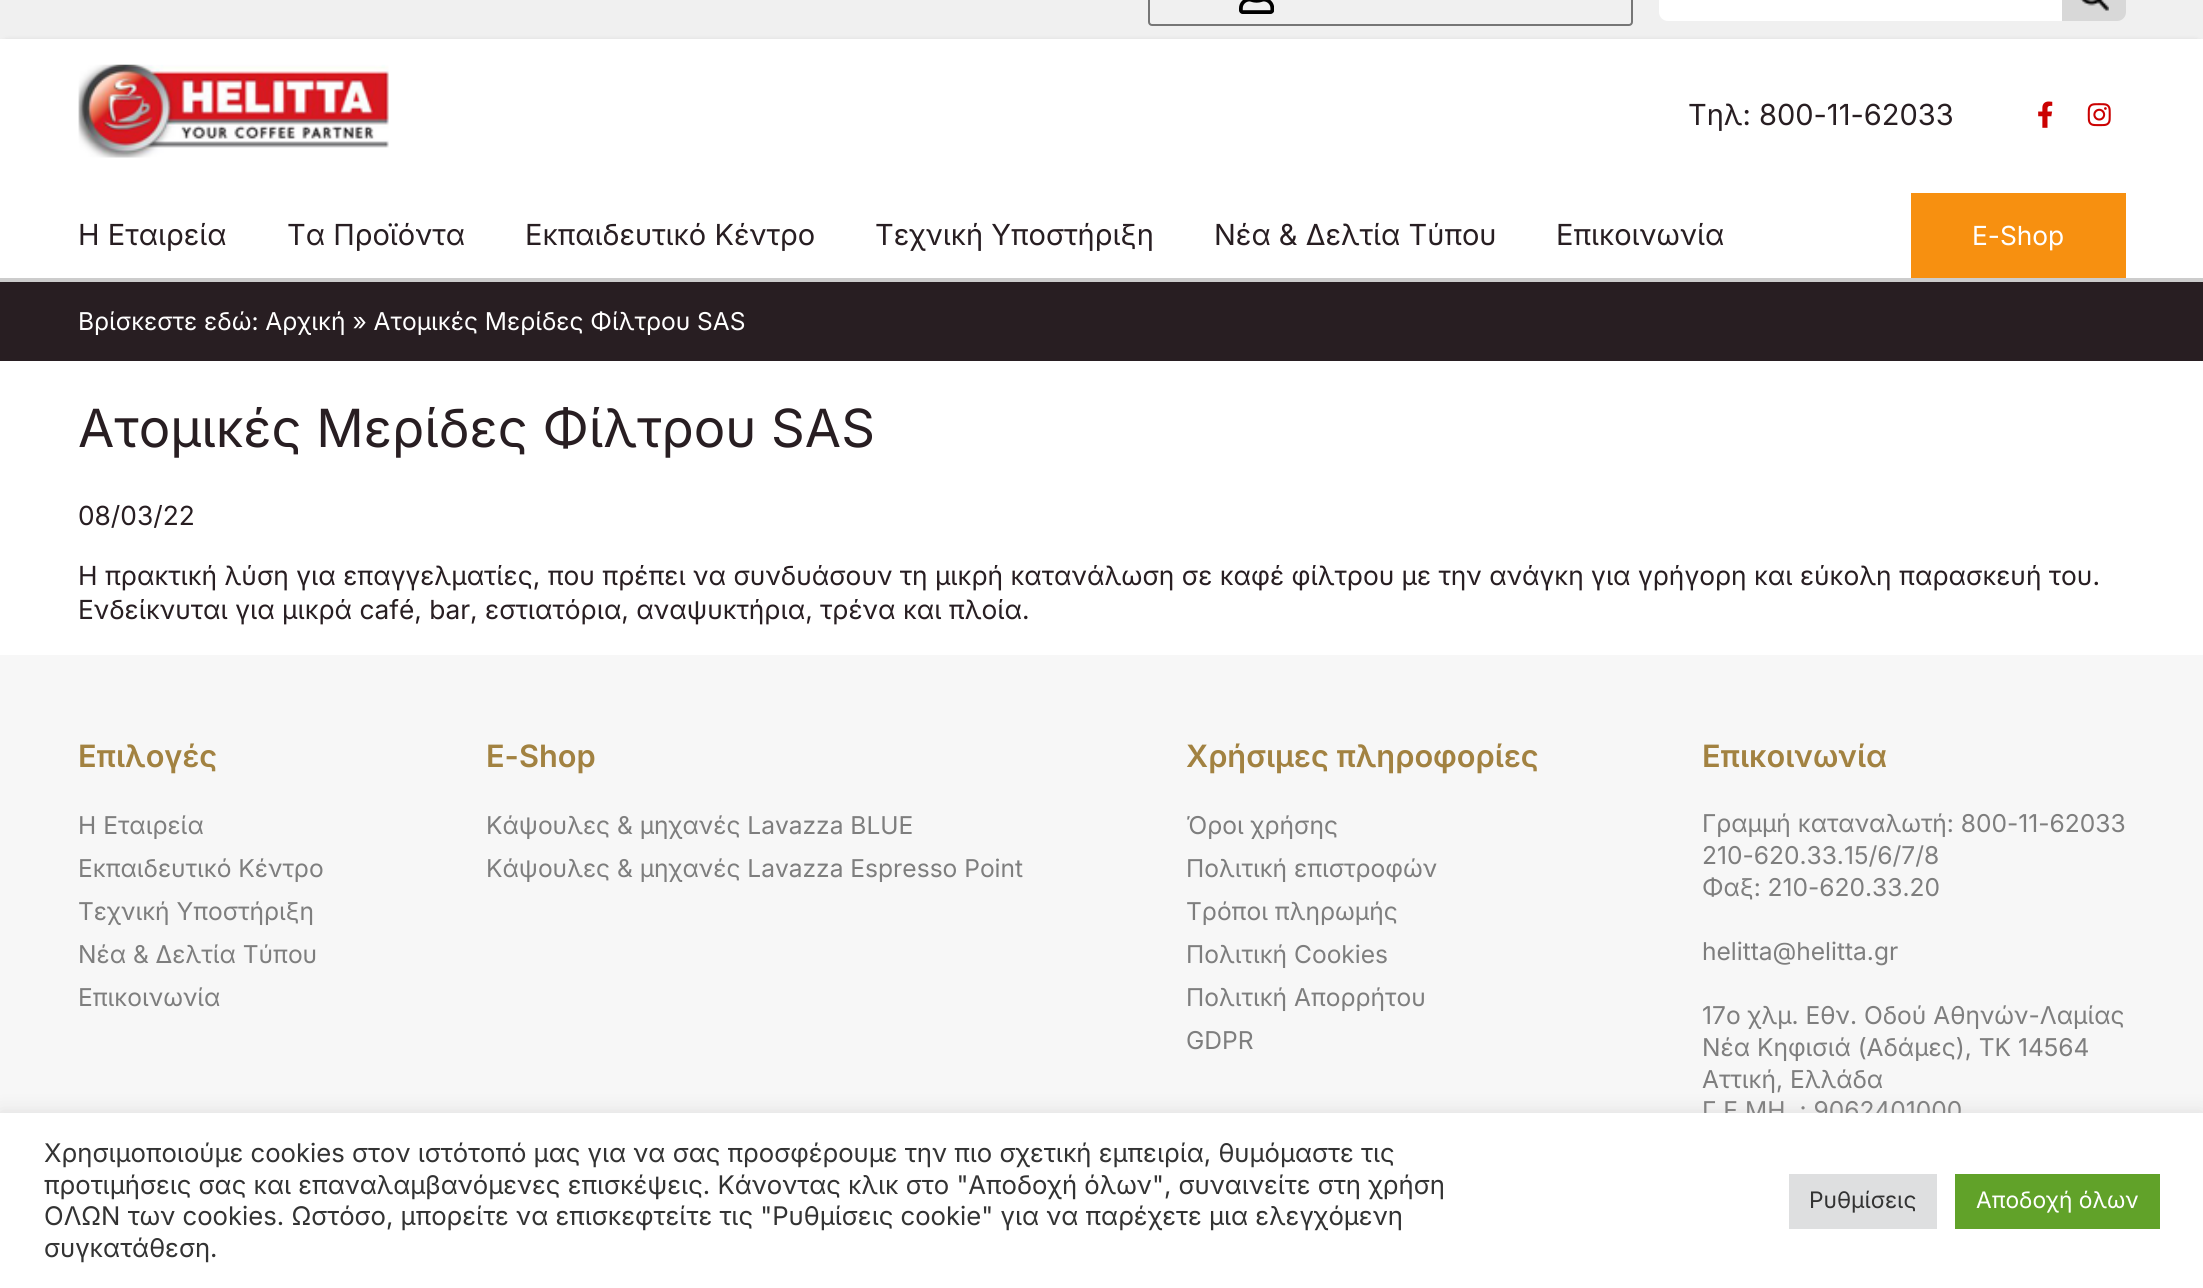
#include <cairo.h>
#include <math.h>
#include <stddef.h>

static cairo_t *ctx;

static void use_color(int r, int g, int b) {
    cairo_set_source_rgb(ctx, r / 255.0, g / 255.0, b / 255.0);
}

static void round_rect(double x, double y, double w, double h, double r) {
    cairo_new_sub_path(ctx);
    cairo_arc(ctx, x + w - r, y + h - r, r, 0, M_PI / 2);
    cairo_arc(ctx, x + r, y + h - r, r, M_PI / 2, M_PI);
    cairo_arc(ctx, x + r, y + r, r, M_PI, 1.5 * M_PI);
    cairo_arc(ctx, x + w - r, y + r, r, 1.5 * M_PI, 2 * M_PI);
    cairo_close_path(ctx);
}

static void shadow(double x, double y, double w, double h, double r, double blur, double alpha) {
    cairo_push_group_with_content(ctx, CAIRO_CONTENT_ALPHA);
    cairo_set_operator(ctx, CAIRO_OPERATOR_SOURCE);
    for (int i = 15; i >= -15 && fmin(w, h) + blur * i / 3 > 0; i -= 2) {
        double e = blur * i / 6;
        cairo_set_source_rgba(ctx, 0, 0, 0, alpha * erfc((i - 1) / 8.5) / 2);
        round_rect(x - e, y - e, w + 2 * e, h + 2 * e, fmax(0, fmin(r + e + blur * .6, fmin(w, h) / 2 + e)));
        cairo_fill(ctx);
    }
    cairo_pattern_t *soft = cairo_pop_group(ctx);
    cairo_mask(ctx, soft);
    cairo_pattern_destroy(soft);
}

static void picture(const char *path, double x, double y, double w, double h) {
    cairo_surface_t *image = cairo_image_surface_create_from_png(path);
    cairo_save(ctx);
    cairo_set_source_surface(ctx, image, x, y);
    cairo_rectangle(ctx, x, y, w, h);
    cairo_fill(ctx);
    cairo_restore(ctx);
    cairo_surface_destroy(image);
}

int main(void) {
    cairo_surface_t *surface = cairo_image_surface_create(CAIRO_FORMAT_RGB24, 2203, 1288);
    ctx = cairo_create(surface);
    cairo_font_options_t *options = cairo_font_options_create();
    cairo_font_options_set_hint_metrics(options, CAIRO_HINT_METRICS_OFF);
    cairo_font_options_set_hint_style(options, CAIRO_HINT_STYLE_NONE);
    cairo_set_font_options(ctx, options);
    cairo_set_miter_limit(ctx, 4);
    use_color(255, 255, 255);
    cairo_paint(ctx);
    use_color(240, 240, 240);
    cairo_rectangle(ctx, 0, 0, 2203, 39);
    cairo_fill(ctx);
    round_rect(1149, -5, 483, 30, 3);
    use_color(118, 118, 118);
    cairo_stroke(ctx);
    picture("img1.png", 1239, 0, 35, 14);
    use_color(255, 255, 255);
    cairo_new_path(ctx);
    cairo_move_to(ctx, 1668, -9);
    cairo_line_to(ctx, 2062, -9);
    cairo_line_to(ctx, 2062, 21);
    cairo_line_to(ctx, 1668, 21);
    cairo_curve_to(ctx, 1663, 21, 1659, 17, 1659, 12);
    cairo_line_to(ctx, 1659, 0);
    cairo_curve_to(ctx, 1659, -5, 1663, -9, 1668, -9);
    cairo_close_path(ctx);
    cairo_fill(ctx);
    use_color(216, 216, 216);
    cairo_new_path(ctx);
    cairo_move_to(ctx, 2062, -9);
    cairo_line_to(ctx, 2117, -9);
    cairo_curve_to(ctx, 2122, -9, 2126, -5, 2126, 0);
    cairo_line_to(ctx, 2126, 12);
    cairo_curve_to(ctx, 2126, 17, 2122, 21, 2117, 21);
    cairo_line_to(ctx, 2062, 21);
    cairo_close_path(ctx);
    cairo_fill(ctx);
    picture("img2.png", 2080, 0, 29, 11);
    use_color(40, 30, 34);
    cairo_rectangle(ctx, 0, 282, 2203, 79);
    cairo_fill(ctx);
    use_color(0, 0, 0);
    shadow(7, 46, 2189, 229, 0, 4.5, 0.75);
    use_color(255, 255, 255);
    cairo_rectangle(ctx, 0, 39, 2203, 239);
    cairo_fill(ctx);
    use_color(204, 204, 204);
    cairo_rectangle(ctx, 0, 278, 2203, 4);
    cairo_fill(ctx);
    picture("img3.png", 78, 64, 311, 94);
    cairo_select_font_face(ctx, "Inter", CAIRO_FONT_SLANT_NORMAL, CAIRO_FONT_WEIGHT_NORMAL);
    cairo_set_font_size(ctx, 29);
    use_color(40, 30, 34);
    cairo_move_to(ctx, 1688, 125);
    cairo_show_text(ctx, "Τηλ: 800-11-62033");
    picture("img4.png", 2038, 101, 15, 27);
    picture("img5.png", 2087, 103, 24, 24);
    cairo_move_to(ctx, 78, 245);
    cairo_show_text(ctx, "Η Εταιρεία");
    cairo_move_to(ctx, 287, 245);
    cairo_show_text(ctx, "Τα Προϊόντα");
    cairo_move_to(ctx, 525, 245);
    cairo_show_text(ctx, "Εκπαιδευτικό Κέντρο");
    cairo_move_to(ctx, 875, 245);
    cairo_show_text(ctx, "Τεχνική Υποστήριξη");
    cairo_move_to(ctx, 1214, 245);
    cairo_show_text(ctx, "Νέα & Δελτία Τύπου");
    cairo_move_to(ctx, 1556, 245);
    cairo_show_text(ctx, "Επικοινωνία");
    use_color(247, 144, 16);
    cairo_rectangle(ctx, 1911, 193, 215, 85);
    cairo_fill(ctx);
    cairo_set_font_size(ctx, 26.3);
    use_color(255, 255, 255);
    cairo_move_to(ctx, 1972, 245);
    cairo_show_text(ctx, "E-Shop");
    cairo_set_font_size(ctx, 24.55);
    cairo_move_to(ctx, 78, 330);
    cairo_show_text(ctx, "Βρίσκεστε εδώ: Αρχική » Ατομικές Μερίδες Φίλτρου SAS");
    cairo_set_font_size(ctx, 52.6);
    use_color(40, 30, 34);
    cairo_move_to(ctx, 78, 447);
    cairo_show_text(ctx, "Ατομικές Μερίδες Φίλτρου SAS");
    cairo_set_font_size(ctx, 26.3);
    cairo_move_to(ctx, 78, 525);
    cairo_show_text(ctx, "08/03/22");
    cairo_move_to(ctx, 78, 585);
    cairo_show_text(ctx, "Η πρακτική λύση για επαγγελματίες, που πρέπει να συνδυάσουν τη μικρή κατανάλωση σε καφέ φίλτρου με την ανάγκη για γρήγορη και εύκολη παρασκευή του.");
    cairo_move_to(ctx, 78, 619);
    cairo_show_text(ctx, "Ενδείκνυται για μικρά café, bar, εστιατόρια, αναψυκτήρια, τρένα και πλοία.");
    use_color(247, 247, 247);
    cairo_rectangle(ctx, 0, 655, 2203, 458);
    cairo_fill(ctx);
    cairo_select_font_face(ctx, "Inter SemiBold", CAIRO_FONT_SLANT_NORMAL, CAIRO_FONT_WEIGHT_NORMAL);
    cairo_set_font_size(ctx, 30.75);
    use_color(162, 130, 65);
    cairo_move_to(ctx, 78, 767);
    cairo_show_text(ctx, "Επιλογές");
    cairo_select_font_face(ctx, "Inter", CAIRO_FONT_SLANT_NORMAL, CAIRO_FONT_WEIGHT_NORMAL);
    cairo_set_font_size(ctx, 24.55);
    use_color(126, 126, 126);
    cairo_move_to(ctx, 78, 834);
    cairo_show_text(ctx, "Η Εταιρεία");
    cairo_move_to(ctx, 78, 877);
    cairo_show_text(ctx, "Εκπαιδευτικό Κέντρο");
    cairo_move_to(ctx, 78, 920);
    cairo_show_text(ctx, "Τεχνική Υποστήριξη");
    cairo_move_to(ctx, 78, 963);
    cairo_show_text(ctx, "Νέα & Δελτία Τύπου");
    cairo_move_to(ctx, 78, 1006);
    cairo_show_text(ctx, "Επικοινωνία");
    cairo_select_font_face(ctx, "Inter SemiBold", CAIRO_FONT_SLANT_NORMAL, CAIRO_FONT_WEIGHT_NORMAL);
    cairo_set_font_size(ctx, 30.75);
    use_color(162, 130, 65);
    cairo_move_to(ctx, 486, 767);
    cairo_show_text(ctx, "E-Shop");
    cairo_select_font_face(ctx, "Inter", CAIRO_FONT_SLANT_NORMAL, CAIRO_FONT_WEIGHT_NORMAL);
    cairo_set_font_size(ctx, 24.55);
    use_color(126, 126, 126);
    cairo_move_to(ctx, 486, 834);
    cairo_show_text(ctx, "Κάψουλες & μηχανές Lavazza BLUE");
    cairo_move_to(ctx, 486, 877);
    cairo_show_text(ctx, "Κάψουλες & μηχανές Lavazza Espresso Point");
    cairo_select_font_face(ctx, "Inter SemiBold", CAIRO_FONT_SLANT_NORMAL, CAIRO_FONT_WEIGHT_NORMAL);
    cairo_set_font_size(ctx, 30.75);
    use_color(162, 130, 65);
    cairo_move_to(ctx, 1186, 767);
    cairo_show_text(ctx, "Χρήσιμες πληροφορίες");
    cairo_select_font_face(ctx, "Inter", CAIRO_FONT_SLANT_NORMAL, CAIRO_FONT_WEIGHT_NORMAL);
    cairo_set_font_size(ctx, 24.55);
    use_color(126, 126, 126);
    cairo_move_to(ctx, 1186, 834);
    cairo_show_text(ctx, "Όροι χρήσης");
    cairo_move_to(ctx, 1186, 877);
    cairo_show_text(ctx, "Πολιτική επιστροφών");
    cairo_move_to(ctx, 1186, 920);
    cairo_show_text(ctx, "Τρόποι πληρωμής");
    cairo_move_to(ctx, 1186, 963);
    cairo_show_text(ctx, "Πολιτική Cookies");
    cairo_move_to(ctx, 1186, 1006);
    cairo_show_text(ctx, "Πολιτική Απορρήτου");
    cairo_move_to(ctx, 1186, 1049);
    cairo_show_text(ctx, "GDPR");
    cairo_select_font_face(ctx, "Inter SemiBold", CAIRO_FONT_SLANT_NORMAL, CAIRO_FONT_WEIGHT_NORMAL);
    cairo_set_font_size(ctx, 30.75);
    use_color(162, 130, 65);
    cairo_move_to(ctx, 1702, 767);
    cairo_show_text(ctx, "Επικοινωνία");
    cairo_select_font_face(ctx, "Inter", CAIRO_FONT_SLANT_NORMAL, CAIRO_FONT_WEIGHT_NORMAL);
    cairo_set_font_size(ctx, 24.55);
    use_color(126, 126, 126);
    cairo_move_to(ctx, 1702, 832);
    cairo_show_text(ctx, "Γραμμή καταναλωτή: 800-11-62033");
    cairo_move_to(ctx, 1702, 864);
    cairo_show_text(ctx, "210-620.33.15/6/7/8");
    cairo_move_to(ctx, 1702, 896);
    cairo_show_text(ctx, "Φαξ: 210-620.33.20");
    cairo_move_to(ctx, 1702, 960);
    cairo_show_text(ctx, "helitta@helitta.gr");
    cairo_move_to(ctx, 1702, 1024);
    cairo_show_text(ctx, "17o χλμ. Eθν. Οδού Αθηνών-Λαμίας");
    cairo_move_to(ctx, 1702, 1056);
    cairo_show_text(ctx, "Νέα Κηφισιά (Αδάμες), ΤΚ 14564");
    cairo_move_to(ctx, 1702, 1088);
    cairo_show_text(ctx, "Αττική, Ελλάδα");
    cairo_move_to(ctx, 1702, 1119);
    cairo_show_text(ctx, "Γ.Ε.ΜΗ. : 9062401000");
    use_color(172, 171, 171);
    shadow(0, 1111, 2203, 175, 0, 9, 0.3);
    use_color(255, 255, 255);
    cairo_rectangle(ctx, 0, 1113, 2203, 175);
    cairo_fill(ctx);
    cairo_set_font_size(ctx, 25.67);
    use_color(51, 51, 51);
    cairo_move_to(ctx, 44, 1162);
    cairo_show_text(ctx, "Χρησιμοποιούμε cookies στον ιστότοπό μας για να σας προσφέρουμε την πιο σχετική εμπειρία, θυμόμαστε τις");
    cairo_move_to(ctx, 44, 1194);
    cairo_show_text(ctx, "προτιμήσεις σας και επαναλαμβανόμενες επισκέψεις. Κάνοντας κλικ στο \"Αποδοχή όλων\", συναινείτε στη χρήση");
    cairo_move_to(ctx, 44, 1225);
    cairo_show_text(ctx, "ΟΛΩΝ των cookies. Ωστόσο, μπορείτε να επισκεφτείτε τις \"Ρυθμίσεις cookie\" για να παρέχετε μια ελεγχόμενη");
    cairo_move_to(ctx, 44, 1257);
    cairo_show_text(ctx, "συγκατάθεση.");
    use_color(222, 223, 224);
    cairo_rectangle(ctx, 1789, 1174, 148, 55);
    cairo_fill(ctx);
    cairo_set_font_size(ctx, 22.75);
    use_color(51, 51, 51);
    cairo_move_to(ctx, 1809, 1208);
    cairo_show_text(ctx, "Ρυθμίσεις");
    use_color(97, 162, 41);
    cairo_rectangle(ctx, 1955, 1174, 205, 55);
    cairo_fill(ctx);
    use_color(255, 255, 255);
    cairo_move_to(ctx, 1976, 1208);
    cairo_show_text(ctx, "Αποδοχή όλων");
    cairo_surface_write_to_png(surface, "result.png");
    cairo_font_options_destroy(options);
    cairo_destroy(ctx);
    cairo_surface_destroy(surface);
    return 0;
}
